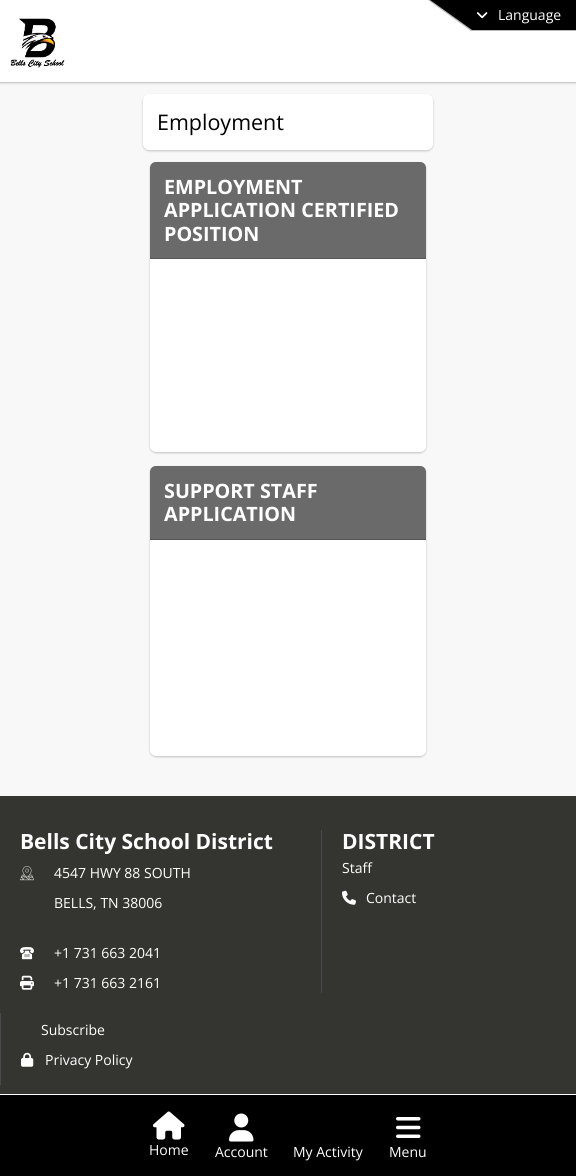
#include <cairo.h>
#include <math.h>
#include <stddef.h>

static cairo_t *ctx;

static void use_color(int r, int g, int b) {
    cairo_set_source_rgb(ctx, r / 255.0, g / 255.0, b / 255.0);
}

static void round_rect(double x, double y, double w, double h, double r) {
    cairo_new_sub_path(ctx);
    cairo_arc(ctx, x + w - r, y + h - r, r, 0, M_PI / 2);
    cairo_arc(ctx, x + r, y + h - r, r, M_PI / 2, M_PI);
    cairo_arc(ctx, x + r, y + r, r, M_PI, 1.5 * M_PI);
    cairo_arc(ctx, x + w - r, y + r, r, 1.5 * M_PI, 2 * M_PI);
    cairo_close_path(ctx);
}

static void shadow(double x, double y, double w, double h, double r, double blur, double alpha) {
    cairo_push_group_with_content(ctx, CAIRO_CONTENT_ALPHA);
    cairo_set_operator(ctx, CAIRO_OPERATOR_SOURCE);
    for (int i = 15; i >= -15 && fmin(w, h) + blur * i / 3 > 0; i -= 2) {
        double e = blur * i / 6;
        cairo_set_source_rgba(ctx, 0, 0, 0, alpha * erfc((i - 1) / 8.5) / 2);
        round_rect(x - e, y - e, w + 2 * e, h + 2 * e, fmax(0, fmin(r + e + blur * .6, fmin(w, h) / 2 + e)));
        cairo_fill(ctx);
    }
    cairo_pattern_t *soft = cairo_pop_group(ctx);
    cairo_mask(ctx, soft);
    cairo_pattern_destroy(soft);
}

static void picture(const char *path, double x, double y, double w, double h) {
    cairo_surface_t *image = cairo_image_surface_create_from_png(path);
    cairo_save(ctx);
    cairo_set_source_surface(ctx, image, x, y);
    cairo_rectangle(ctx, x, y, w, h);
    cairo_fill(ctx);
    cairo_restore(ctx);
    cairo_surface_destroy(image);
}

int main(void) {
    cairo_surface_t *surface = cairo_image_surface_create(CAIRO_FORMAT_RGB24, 576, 1176);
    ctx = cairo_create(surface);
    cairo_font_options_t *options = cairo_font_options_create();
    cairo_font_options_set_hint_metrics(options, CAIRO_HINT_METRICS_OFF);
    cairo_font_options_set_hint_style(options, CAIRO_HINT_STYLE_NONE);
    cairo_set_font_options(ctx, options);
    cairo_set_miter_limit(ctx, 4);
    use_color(248, 248, 248);
    cairo_paint(ctx);
    use_color(223, 223, 223);
    cairo_rectangle(ctx, 0, 82, 576, 1);
    cairo_fill(ctx);
    use_color(0, 0, 0);
    shadow(0, 2, 576, 82, 0, 1, 0.1);
    use_color(255, 255, 255);
    cairo_rectangle(ctx, 0, 0, 576, 82);
    cairo_fill(ctx);
    use_color(183, 183, 183);
    cairo_new_path(ctx);
    cairo_move_to(ctx, 428, 0);
    cairo_line_to(ctx, 471, 31);
    cairo_line_to(ctx, 576, 31);
    cairo_line_to(ctx, 576, 0);
    cairo_close_path(ctx);
    cairo_fill(ctx);
    use_color(0, 0, 0);
    cairo_new_path(ctx);
    cairo_move_to(ctx, 430, 0);
    cairo_line_to(ctx, 472, 30);
    cairo_line_to(ctx, 576, 30);
    cairo_line_to(ctx, 576, 0);
    cairo_close_path(ctx);
    cairo_fill(ctx);
    picture("img1.png", 477, 12, 11, 7);
    cairo_select_font_face(ctx, "Open Sans", CAIRO_FONT_SLANT_NORMAL, CAIRO_FONT_WEIGHT_NORMAL);
    cairo_set_font_size(ctx, 14);
    use_color(255, 255, 255);
    cairo_move_to(ctx, 498, 20);
    cairo_show_text(ctx, "Language");
    picture("img2.png", 10, 18, 55, 50);
    use_color(0, 0, 0);
    shadow(143, 95, 290, 56, 6, 1, 0.22);
    use_color(255, 255, 255);
    round_rect(143, 94, 290, 56, 6);
    cairo_fill(ctx);
    cairo_set_font_size(ctx, 21.5);
    use_color(0, 0, 0);
    cairo_move_to(ctx, 157, 130);
    cairo_show_text(ctx, "Employment");
    use_color(0, 0, 0);
    shadow(150, 163, 276, 290, 6, 1, 0.22);
    use_color(255, 255, 255);
    round_rect(150, 162, 276, 290, 6);
    cairo_fill(ctx);
    use_color(106, 106, 106);
    cairo_new_path(ctx);
    cairo_move_to(ctx, 156, 162);
    cairo_line_to(ctx, 420, 162);
    cairo_curve_to(ctx, 423.5, 162, 426, 164.5, 426, 168);
    cairo_line_to(ctx, 426, 259);
    cairo_line_to(ctx, 150, 259);
    cairo_line_to(ctx, 150, 168);
    cairo_curve_to(ctx, 150, 164.5, 152.5, 162, 156, 162);
    cairo_close_path(ctx);
    cairo_fill(ctx);
    use_color(85, 85, 85);
    cairo_rectangle(ctx, 150, 258, 276, 1);
    cairo_fill(ctx);
    cairo_select_font_face(ctx, "Open Sans", CAIRO_FONT_SLANT_NORMAL, CAIRO_FONT_WEIGHT_BOLD);
    cairo_set_font_size(ctx, 19.75);
    use_color(255, 255, 255);
    cairo_move_to(ctx, 164, 194);
    cairo_show_text(ctx, "EMPLOYMENT");
    cairo_move_to(ctx, 164, 217);
    cairo_show_text(ctx, "APPLICATION CERTIFIED");
    cairo_move_to(ctx, 164, 241);
    cairo_show_text(ctx, "POSITION");
    use_color(0, 0, 0);
    shadow(150, 467, 276, 290, 6, 1, 0.22);
    use_color(255, 255, 255);
    round_rect(150, 466, 276, 290, 6);
    cairo_fill(ctx);
    use_color(106, 106, 106);
    cairo_new_path(ctx);
    cairo_move_to(ctx, 156, 466);
    cairo_line_to(ctx, 420, 466);
    cairo_curve_to(ctx, 423.5, 466, 426, 468.5, 426, 472);
    cairo_line_to(ctx, 426, 540);
    cairo_line_to(ctx, 150, 540);
    cairo_line_to(ctx, 150, 472);
    cairo_curve_to(ctx, 150, 468.5, 152.5, 466, 156, 466);
    cairo_close_path(ctx);
    cairo_fill(ctx);
    use_color(85, 85, 85);
    cairo_rectangle(ctx, 150, 539, 276, 1);
    cairo_fill(ctx);
    use_color(255, 255, 255);
    cairo_move_to(ctx, 164, 498);
    cairo_show_text(ctx, "SUPPORT STAFF");
    cairo_move_to(ctx, 164, 521);
    cairo_show_text(ctx, "APPLICATION");
    use_color(52, 52, 48);
    cairo_rectangle(ctx, 0, 796, 576, 298);
    cairo_fill(ctx);
    cairo_set_font_size(ctx, 21);
    use_color(255, 255, 255);
    cairo_move_to(ctx, 20, 849);
    cairo_show_text(ctx, "Bells City School District");
    picture("img3.png", 20, 866, 14, 15);
    cairo_select_font_face(ctx, "Open Sans", CAIRO_FONT_SLANT_NORMAL, CAIRO_FONT_WEIGHT_NORMAL);
    cairo_set_font_size(ctx, 14);
    cairo_move_to(ctx, 54, 878);
    cairo_show_text(ctx, "4547 HWY 88 SOUTH");
    cairo_move_to(ctx, 54, 908);
    cairo_show_text(ctx, "BELLS, TN 38006");
    picture("img4.png", 20, 947, 14, 13);
    cairo_move_to(ctx, 54, 958);
    cairo_show_text(ctx, "+1 731 663 2041");
    picture("img5.png", 20, 975, 14, 15);
    cairo_move_to(ctx, 54, 988);
    cairo_show_text(ctx, "+1 731 663 2161");
    use_color(73, 74, 77);
    cairo_rectangle(ctx, 321, 830, 1, 163);
    cairo_fill(ctx);
    cairo_select_font_face(ctx, "Open Sans", CAIRO_FONT_SLANT_NORMAL, CAIRO_FONT_WEIGHT_BOLD);
    cairo_set_font_size(ctx, 21);
    use_color(255, 255, 255);
    cairo_move_to(ctx, 342, 849);
    cairo_show_text(ctx, "DISTRICT");
    cairo_select_font_face(ctx, "Open Sans", CAIRO_FONT_SLANT_NORMAL, CAIRO_FONT_WEIGHT_NORMAL);
    cairo_set_font_size(ctx, 14);
    cairo_move_to(ctx, 342, 873);
    cairo_show_text(ctx, "Staff");
    picture("img6.png", 342, 890, 14, 15);
    cairo_move_to(ctx, 366, 903);
    cairo_show_text(ctx, "Contact");
    use_color(73, 74, 77);
    cairo_rectangle(ctx, 0, 1013, 1, 72);
    cairo_fill(ctx);
    use_color(255, 255, 255);
    cairo_move_to(ctx, 41, 1035);
    cairo_show_text(ctx, "Subscribe");
    picture("img7.png", 21, 1052, 13, 15);
    cairo_move_to(ctx, 45, 1065);
    cairo_show_text(ctx, "Privacy Policy");
    use_color(0, 0, 0);
    cairo_rectangle(ctx, 0, 1095, 576, 81);
    cairo_fill(ctx);
    use_color(255, 255, 255);
    cairo_rectangle(ctx, 0, 1094, 576, 1);
    cairo_fill(ctx);
    picture("img8.png", 153, 1111, 32, 29);
    cairo_move_to(ctx, 149, 1155);
    cairo_show_text(ctx, "Home");
    picture("img9.png", 229, 1113, 25, 29);
    cairo_move_to(ctx, 215, 1157);
    cairo_show_text(ctx, "Account");
    cairo_move_to(ctx, 293, 1157);
    cairo_show_text(ctx, "My Activity");
    picture("img10.png", 396, 1117, 25, 21);
    cairo_move_to(ctx, 389, 1157);
    cairo_show_text(ctx, "Menu");
    cairo_surface_write_to_png(surface, "result.png");
    cairo_font_options_destroy(options);
    cairo_destroy(ctx);
    cairo_surface_destroy(surface);
    return 0;
}
